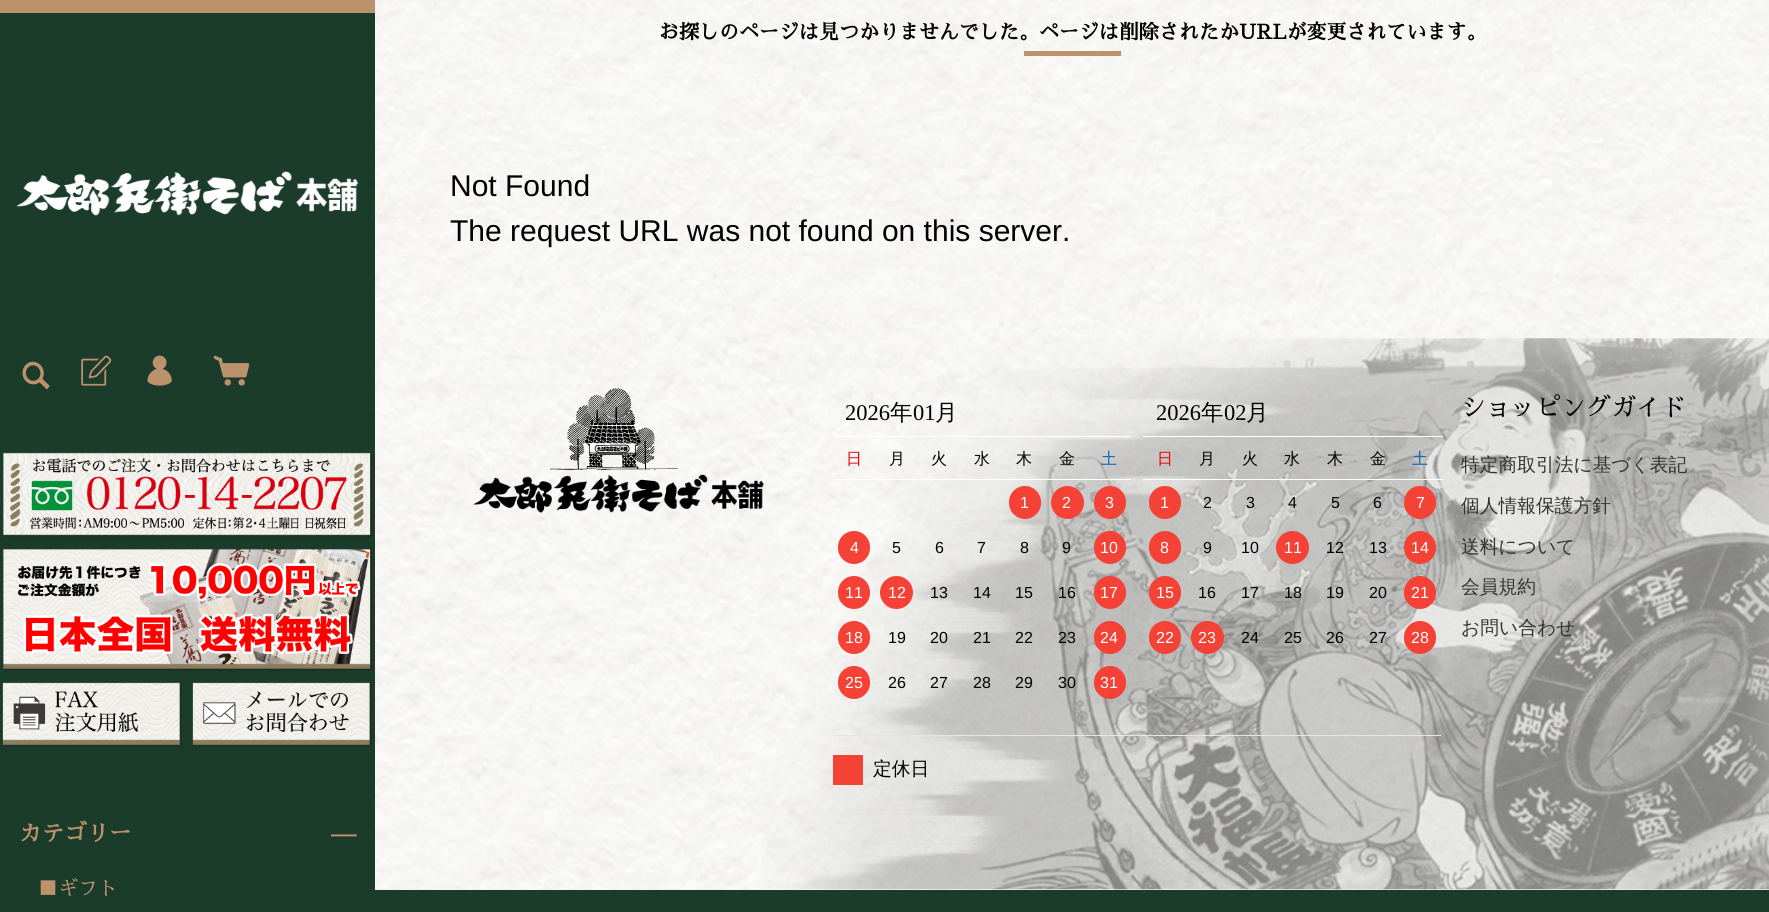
#include <cairo.h>
#include <math.h>
#include <stddef.h>

static cairo_t *ctx;

static void use_color(int r, int g, int b) {
    cairo_set_source_rgb(ctx, r / 255.0, g / 255.0, b / 255.0);
}

static void round_rect(double x, double y, double w, double h, double r) {
    cairo_new_sub_path(ctx);
    cairo_arc(ctx, x + w - r, y + h - r, r, 0, M_PI / 2);
    cairo_arc(ctx, x + r, y + h - r, r, M_PI / 2, M_PI);
    cairo_arc(ctx, x + r, y + r, r, M_PI, 1.5 * M_PI);
    cairo_arc(ctx, x + w - r, y + r, r, 1.5 * M_PI, 2 * M_PI);
    cairo_close_path(ctx);
}

static void picture(const char *path, double x, double y, double w, double h) {
    cairo_surface_t *image = cairo_image_surface_create_from_png(path);
    cairo_save(ctx);
    cairo_set_source_surface(ctx, image, x, y);
    cairo_rectangle(ctx, x, y, w, h);
    cairo_fill(ctx);
    cairo_restore(ctx);
    cairo_surface_destroy(image);
}

int main(void) {
    cairo_surface_t *surface = cairo_image_surface_create(CAIRO_FORMAT_RGB24, 1769, 912);
    ctx = cairo_create(surface);
    cairo_font_options_t *options = cairo_font_options_create();
    cairo_font_options_set_hint_metrics(options, CAIRO_HINT_METRICS_OFF);
    cairo_font_options_set_hint_style(options, CAIRO_HINT_STYLE_NONE);
    cairo_set_font_options(ctx, options);
    cairo_set_miter_limit(ctx, 4);
    use_color(255, 255, 255);
    cairo_paint(ctx);
    picture("img1.png", 375, 0, 1394, 890);
    cairo_select_font_face(ctx, "Sawarabi Mincho", CAIRO_FONT_SLANT_NORMAL, CAIRO_FONT_WEIGHT_BOLD);
    cairo_set_font_size(ctx, 20);
    use_color(0, 0, 0);
    cairo_move_to(ctx, 659, 39);
    cairo_show_text(ctx, "お探しのページは見つかりませんでした。ページは削除されたかURLが変更されています。");
    use_color(188, 146, 109);
    cairo_rectangle(ctx, 1024, 51, 97, 5);
    cairo_fill(ctx);
    cairo_select_font_face(ctx, "Liberation Sans", CAIRO_FONT_SLANT_NORMAL, CAIRO_FONT_WEIGHT_NORMAL);
    cairo_set_font_size(ctx, 30);
    use_color(0, 0, 0);
    cairo_move_to(ctx, 450, 196);
    cairo_show_text(ctx, "Not Found");
    cairo_move_to(ctx, 450, 241);
    cairo_show_text(ctx, "The request URL was not found on this server.");
    picture("img2.png", 762, 338, 1007, 552);
    picture("img3.png", 473, 388, 291, 125);
    cairo_select_font_face(ctx, "Liberation Serif", CAIRO_FONT_SLANT_NORMAL, CAIRO_FONT_WEIGHT_NORMAL);
    cairo_set_font_size(ctx, 22.5);
    cairo_move_to(ctx, 845, 420);
    cairo_show_text(ctx, "2026");
    cairo_select_font_face(ctx, "WenQuanYi Zen Hei Medium", CAIRO_FONT_SLANT_NORMAL, CAIRO_FONT_WEIGHT_NORMAL);
    cairo_move_to(ctx, 890, 420);
    cairo_show_text(ctx, "年");
    cairo_select_font_face(ctx, "Liberation Serif", CAIRO_FONT_SLANT_NORMAL, CAIRO_FONT_WEIGHT_NORMAL);
    cairo_move_to(ctx, 913, 420);
    cairo_show_text(ctx, "01");
    cairo_select_font_face(ctx, "WenQuanYi Zen Hei Medium", CAIRO_FONT_SLANT_NORMAL, CAIRO_FONT_WEIGHT_NORMAL);
    cairo_move_to(ctx, 935, 420);
    cairo_show_text(ctx, "月");
    use_color(255, 255, 255);
    cairo_rectangle(ctx, 833, 436, 298, 1);
    cairo_fill(ctx);
    cairo_rectangle(ctx, 833, 479, 298, 1);
    cairo_fill(ctx);
    cairo_set_font_size(ctx, 16);
    use_color(236, 0, 0);
    cairo_move_to(ctx, 846, 464);
    cairo_show_text(ctx, "日");
    use_color(0, 0, 0);
    cairo_move_to(ctx, 889, 464);
    cairo_show_text(ctx, "月");
    cairo_move_to(ctx, 931, 464);
    cairo_show_text(ctx, "火");
    cairo_move_to(ctx, 974, 464);
    cairo_show_text(ctx, "水");
    cairo_move_to(ctx, 1016, 464);
    cairo_show_text(ctx, "木");
    cairo_move_to(ctx, 1059, 464);
    cairo_show_text(ctx, "金");
    use_color(0, 104, 183);
    cairo_move_to(ctx, 1101, 464);
    cairo_show_text(ctx, "土");
    use_color(244, 67, 54);
    round_rect(1009, 486, 32, 33, 16);
    cairo_fill(ctx);
    cairo_select_font_face(ctx, "Liberation Sans", CAIRO_FONT_SLANT_NORMAL, CAIRO_FONT_WEIGHT_NORMAL);
    use_color(255, 255, 255);
    cairo_move_to(ctx, 1020, 508);
    cairo_show_text(ctx, "1");
    use_color(244, 67, 54);
    cairo_new_path(ctx);
    cairo_arc(ctx, 1067.5, 502.5, 16.5, 0, 2 * M_PI);
    cairo_fill(ctx);
    use_color(255, 255, 255);
    cairo_move_to(ctx, 1062, 508);
    cairo_show_text(ctx, "2");
    use_color(244, 67, 54);
    round_rect(1094, 486, 32, 33, 16);
    cairo_fill(ctx);
    use_color(255, 255, 255);
    cairo_move_to(ctx, 1105, 508);
    cairo_show_text(ctx, "3");
    use_color(244, 67, 54);
    round_rect(838, 531, 32, 33, 16);
    cairo_fill(ctx);
    use_color(255, 255, 255);
    cairo_move_to(ctx, 850, 553);
    cairo_show_text(ctx, "4");
    use_color(0, 0, 0);
    cairo_move_to(ctx, 892, 553);
    cairo_show_text(ctx, "5");
    cairo_move_to(ctx, 935, 553);
    cairo_show_text(ctx, "6");
    cairo_move_to(ctx, 977, 553);
    cairo_show_text(ctx, "7");
    cairo_move_to(ctx, 1020, 553);
    cairo_show_text(ctx, "8");
    cairo_move_to(ctx, 1062, 553);
    cairo_show_text(ctx, "9");
    use_color(244, 67, 54);
    round_rect(1094, 531, 32, 33, 16);
    cairo_fill(ctx);
    use_color(255, 255, 255);
    cairo_move_to(ctx, 1100, 553);
    cairo_show_text(ctx, "10");
    use_color(244, 67, 54);
    round_rect(838, 576, 32, 33, 16);
    cairo_fill(ctx);
    use_color(255, 255, 255);
    cairo_move_to(ctx, 845, 598);
    cairo_show_text(ctx, "11");
    use_color(244, 67, 54);
    cairo_new_path(ctx);
    cairo_arc(ctx, 896.5, 592.5, 16.5, 0, 2 * M_PI);
    cairo_fill(ctx);
    use_color(255, 255, 255);
    cairo_move_to(ctx, 888, 598);
    cairo_show_text(ctx, "12");
    use_color(0, 0, 0);
    cairo_move_to(ctx, 930, 598);
    cairo_show_text(ctx, "13");
    cairo_move_to(ctx, 973, 598);
    cairo_show_text(ctx, "14");
    cairo_move_to(ctx, 1015, 598);
    cairo_show_text(ctx, "15");
    cairo_move_to(ctx, 1058, 598);
    cairo_show_text(ctx, "16");
    use_color(244, 67, 54);
    round_rect(1094, 576, 32, 33, 16);
    cairo_fill(ctx);
    use_color(255, 255, 255);
    cairo_move_to(ctx, 1100, 598);
    cairo_show_text(ctx, "17");
    use_color(244, 67, 54);
    round_rect(838, 621, 32, 33, 16);
    cairo_fill(ctx);
    use_color(255, 255, 255);
    cairo_move_to(ctx, 845, 643);
    cairo_show_text(ctx, "18");
    use_color(0, 0, 0);
    cairo_move_to(ctx, 888, 643);
    cairo_show_text(ctx, "19");
    cairo_move_to(ctx, 930, 643);
    cairo_show_text(ctx, "20");
    cairo_move_to(ctx, 973, 643);
    cairo_show_text(ctx, "21");
    cairo_move_to(ctx, 1015, 643);
    cairo_show_text(ctx, "22");
    cairo_move_to(ctx, 1058, 643);
    cairo_show_text(ctx, "23");
    use_color(244, 67, 54);
    round_rect(1094, 621, 32, 33, 16);
    cairo_fill(ctx);
    use_color(255, 255, 255);
    cairo_move_to(ctx, 1100, 643);
    cairo_show_text(ctx, "24");
    use_color(244, 67, 54);
    round_rect(838, 666, 32, 33, 16);
    cairo_fill(ctx);
    use_color(255, 255, 255);
    cairo_move_to(ctx, 845, 688);
    cairo_show_text(ctx, "25");
    use_color(0, 0, 0);
    cairo_move_to(ctx, 888, 688);
    cairo_show_text(ctx, "26");
    cairo_move_to(ctx, 930, 688);
    cairo_show_text(ctx, "27");
    cairo_move_to(ctx, 973, 688);
    cairo_show_text(ctx, "28");
    cairo_move_to(ctx, 1015, 688);
    cairo_show_text(ctx, "29");
    cairo_move_to(ctx, 1058, 688);
    cairo_show_text(ctx, "30");
    use_color(244, 67, 54);
    round_rect(1094, 666, 32, 33, 16);
    cairo_fill(ctx);
    use_color(255, 255, 255);
    cairo_move_to(ctx, 1100, 688);
    cairo_show_text(ctx, "31");
    cairo_select_font_face(ctx, "Liberation Serif", CAIRO_FONT_SLANT_NORMAL, CAIRO_FONT_WEIGHT_NORMAL);
    cairo_set_font_size(ctx, 22.5);
    use_color(0, 0, 0);
    cairo_move_to(ctx, 1156, 420);
    cairo_show_text(ctx, "2026");
    cairo_select_font_face(ctx, "WenQuanYi Zen Hei Medium", CAIRO_FONT_SLANT_NORMAL, CAIRO_FONT_WEIGHT_NORMAL);
    cairo_move_to(ctx, 1201, 420);
    cairo_show_text(ctx, "年");
    cairo_select_font_face(ctx, "Liberation Serif", CAIRO_FONT_SLANT_NORMAL, CAIRO_FONT_WEIGHT_NORMAL);
    cairo_move_to(ctx, 1224, 420);
    cairo_show_text(ctx, "02");
    cairo_select_font_face(ctx, "WenQuanYi Zen Hei Medium", CAIRO_FONT_SLANT_NORMAL, CAIRO_FONT_WEIGHT_NORMAL);
    cairo_move_to(ctx, 1246, 420);
    cairo_show_text(ctx, "月");
    use_color(255, 255, 255);
    cairo_rectangle(ctx, 1143, 436, 300, 1);
    cairo_fill(ctx);
    cairo_rectangle(ctx, 1143, 479, 300, 1);
    cairo_fill(ctx);
    cairo_set_font_size(ctx, 16);
    use_color(236, 0, 0);
    cairo_move_to(ctx, 1157, 464);
    cairo_show_text(ctx, "日");
    use_color(0, 0, 0);
    cairo_move_to(ctx, 1199, 464);
    cairo_show_text(ctx, "月");
    cairo_move_to(ctx, 1242, 464);
    cairo_show_text(ctx, "火");
    cairo_move_to(ctx, 1284, 464);
    cairo_show_text(ctx, "水");
    cairo_move_to(ctx, 1327, 464);
    cairo_show_text(ctx, "木");
    cairo_move_to(ctx, 1370, 464);
    cairo_show_text(ctx, "金");
    use_color(0, 104, 183);
    cairo_move_to(ctx, 1412, 464);
    cairo_show_text(ctx, "土");
    use_color(244, 67, 54);
    round_rect(1149, 486, 32, 33, 16);
    cairo_fill(ctx);
    cairo_select_font_face(ctx, "Liberation Sans", CAIRO_FONT_SLANT_NORMAL, CAIRO_FONT_WEIGHT_NORMAL);
    use_color(255, 255, 255);
    cairo_move_to(ctx, 1160, 508);
    cairo_show_text(ctx, "1");
    use_color(0, 0, 0);
    cairo_move_to(ctx, 1203, 508);
    cairo_show_text(ctx, "2");
    cairo_move_to(ctx, 1246, 508);
    cairo_show_text(ctx, "3");
    cairo_move_to(ctx, 1288, 508);
    cairo_show_text(ctx, "4");
    cairo_move_to(ctx, 1331, 508);
    cairo_show_text(ctx, "5");
    cairo_move_to(ctx, 1373, 508);
    cairo_show_text(ctx, "6");
    use_color(244, 67, 54);
    round_rect(1404, 486, 32, 33, 16);
    cairo_fill(ctx);
    use_color(255, 255, 255);
    cairo_move_to(ctx, 1416, 508);
    cairo_show_text(ctx, "7");
    use_color(244, 67, 54);
    round_rect(1149, 531, 32, 33, 16);
    cairo_fill(ctx);
    use_color(255, 255, 255);
    cairo_move_to(ctx, 1160, 553);
    cairo_show_text(ctx, "8");
    use_color(0, 0, 0);
    cairo_move_to(ctx, 1203, 553);
    cairo_show_text(ctx, "9");
    cairo_move_to(ctx, 1241, 553);
    cairo_show_text(ctx, "10");
    use_color(244, 67, 54);
    cairo_new_path(ctx);
    cairo_arc(ctx, 1292.5, 547.5, 16.5, 0, 2 * M_PI);
    cairo_fill(ctx);
    use_color(255, 255, 255);
    cairo_move_to(ctx, 1284, 553);
    cairo_show_text(ctx, "11");
    use_color(0, 0, 0);
    cairo_move_to(ctx, 1326, 553);
    cairo_show_text(ctx, "12");
    cairo_move_to(ctx, 1369, 553);
    cairo_show_text(ctx, "13");
    use_color(244, 67, 54);
    round_rect(1404, 531, 32, 33, 16);
    cairo_fill(ctx);
    use_color(255, 255, 255);
    cairo_move_to(ctx, 1411, 553);
    cairo_show_text(ctx, "14");
    use_color(244, 67, 54);
    round_rect(1149, 576, 32, 33, 16);
    cairo_fill(ctx);
    use_color(255, 255, 255);
    cairo_move_to(ctx, 1156, 598);
    cairo_show_text(ctx, "15");
    use_color(0, 0, 0);
    cairo_move_to(ctx, 1198, 598);
    cairo_show_text(ctx, "16");
    cairo_move_to(ctx, 1241, 598);
    cairo_show_text(ctx, "17");
    cairo_move_to(ctx, 1284, 598);
    cairo_show_text(ctx, "18");
    cairo_move_to(ctx, 1326, 598);
    cairo_show_text(ctx, "19");
    cairo_move_to(ctx, 1369, 598);
    cairo_show_text(ctx, "20");
    use_color(244, 67, 54);
    round_rect(1404, 576, 32, 33, 16);
    cairo_fill(ctx);
    use_color(255, 255, 255);
    cairo_move_to(ctx, 1411, 598);
    cairo_show_text(ctx, "21");
    use_color(244, 67, 54);
    round_rect(1149, 621, 32, 33, 16);
    cairo_fill(ctx);
    use_color(255, 255, 255);
    cairo_move_to(ctx, 1156, 643);
    cairo_show_text(ctx, "22");
    use_color(244, 67, 54);
    cairo_new_path(ctx);
    cairo_arc(ctx, 1207.5, 637.5, 16.5, 0, 2 * M_PI);
    cairo_fill(ctx);
    use_color(255, 255, 255);
    cairo_move_to(ctx, 1198, 643);
    cairo_show_text(ctx, "23");
    use_color(0, 0, 0);
    cairo_move_to(ctx, 1241, 643);
    cairo_show_text(ctx, "24");
    cairo_move_to(ctx, 1284, 643);
    cairo_show_text(ctx, "25");
    cairo_move_to(ctx, 1326, 643);
    cairo_show_text(ctx, "26");
    cairo_move_to(ctx, 1369, 643);
    cairo_show_text(ctx, "27");
    use_color(244, 67, 54);
    round_rect(1404, 621, 32, 33, 16);
    cairo_fill(ctx);
    use_color(255, 255, 255);
    cairo_move_to(ctx, 1411, 643);
    cairo_show_text(ctx, "28");
    use_color(229, 229, 229);
    cairo_rectangle(ctx, 833, 735, 608, 1);
    cairo_fill(ctx);
    use_color(244, 67, 54);
    cairo_rectangle(ctx, 833, 755, 30, 30);
    cairo_fill(ctx);
    cairo_select_font_face(ctx, "WenQuanYi Zen Hei Medium", CAIRO_FONT_SLANT_NORMAL, CAIRO_FONT_WEIGHT_NORMAL);
    cairo_set_font_size(ctx, 18.75);
    use_color(0, 0, 0);
    cairo_move_to(ctx, 873, 775);
    cairo_show_text(ctx, "定休日");
    cairo_select_font_face(ctx, "Sawarabi Mincho", CAIRO_FONT_SLANT_NORMAL, CAIRO_FONT_WEIGHT_NORMAL);
    cairo_set_font_size(ctx, 25);
    cairo_move_to(ctx, 1461, 416);
    cairo_show_text(ctx, "ショッピングガイド");
    cairo_select_font_face(ctx, "WenQuanYi Zen Hei Medium", CAIRO_FONT_SLANT_NORMAL, CAIRO_FONT_WEIGHT_NORMAL);
    cairo_set_font_size(ctx, 18.75);
    use_color(51, 51, 51);
    cairo_move_to(ctx, 1461, 471);
    cairo_show_text(ctx, "特定商取引法に基づく表記");
    cairo_move_to(ctx, 1461, 512);
    cairo_show_text(ctx, "個人情報保護方針");
    cairo_move_to(ctx, 1461, 553);
    cairo_show_text(ctx, "送料について");
    cairo_move_to(ctx, 1461, 593);
    cairo_show_text(ctx, "会員規約");
    cairo_move_to(ctx, 1461, 634);
    cairo_show_text(ctx, "お問い合わせ");
    use_color(27, 59, 43);
    cairo_rectangle(ctx, 0, 13, 375, 899);
    cairo_fill(ctx);
    use_color(188, 146, 109);
    cairo_rectangle(ctx, 0, 0, 375, 13);
    cairo_fill(ctx);
    picture("img4.png", 16, 171, 343, 45);
    picture("img5.png", 22, 361, 28, 29);
    picture("img6.png", 81, 355, 31, 31);
    picture("img7.png", 147, 355, 25, 31);
    picture("img8.png", 213, 355, 37, 31);
    picture("img9.png", 3, 452, 370, 86);
    picture("img10.png", 3, 549, 370, 122);
    picture("img11.png", 2, 682, 180, 65);
    picture("img12.png", 192, 682, 180, 65);
    cairo_select_font_face(ctx, "Sawarabi Mincho", CAIRO_FONT_SLANT_NORMAL, CAIRO_FONT_WEIGHT_BOLD);
    cairo_set_font_size(ctx, 22.5);
    cairo_move_to(ctx, 19, 841);
    cairo_show_text(ctx, "カテゴリー");
    cairo_set_font_size(ctx, 25);
    cairo_move_to(ctx, 331, 845);
    cairo_show_text(ctx, "─");
    cairo_select_font_face(ctx, "Sawarabi Mincho", CAIRO_FONT_SLANT_NORMAL, CAIRO_FONT_WEIGHT_NORMAL);
    cairo_set_font_size(ctx, 20);
    cairo_move_to(ctx, 38, 895);
    cairo_show_text(ctx, "■ギフト");
    use_color(27, 59, 43);
    cairo_rectangle(ctx, 375, 890, 1394, 22);
    cairo_fill(ctx);
    cairo_surface_write_to_png(surface, "result.png");
    cairo_font_options_destroy(options);
    cairo_destroy(ctx);
    cairo_surface_destroy(surface);
    return 0;
}
